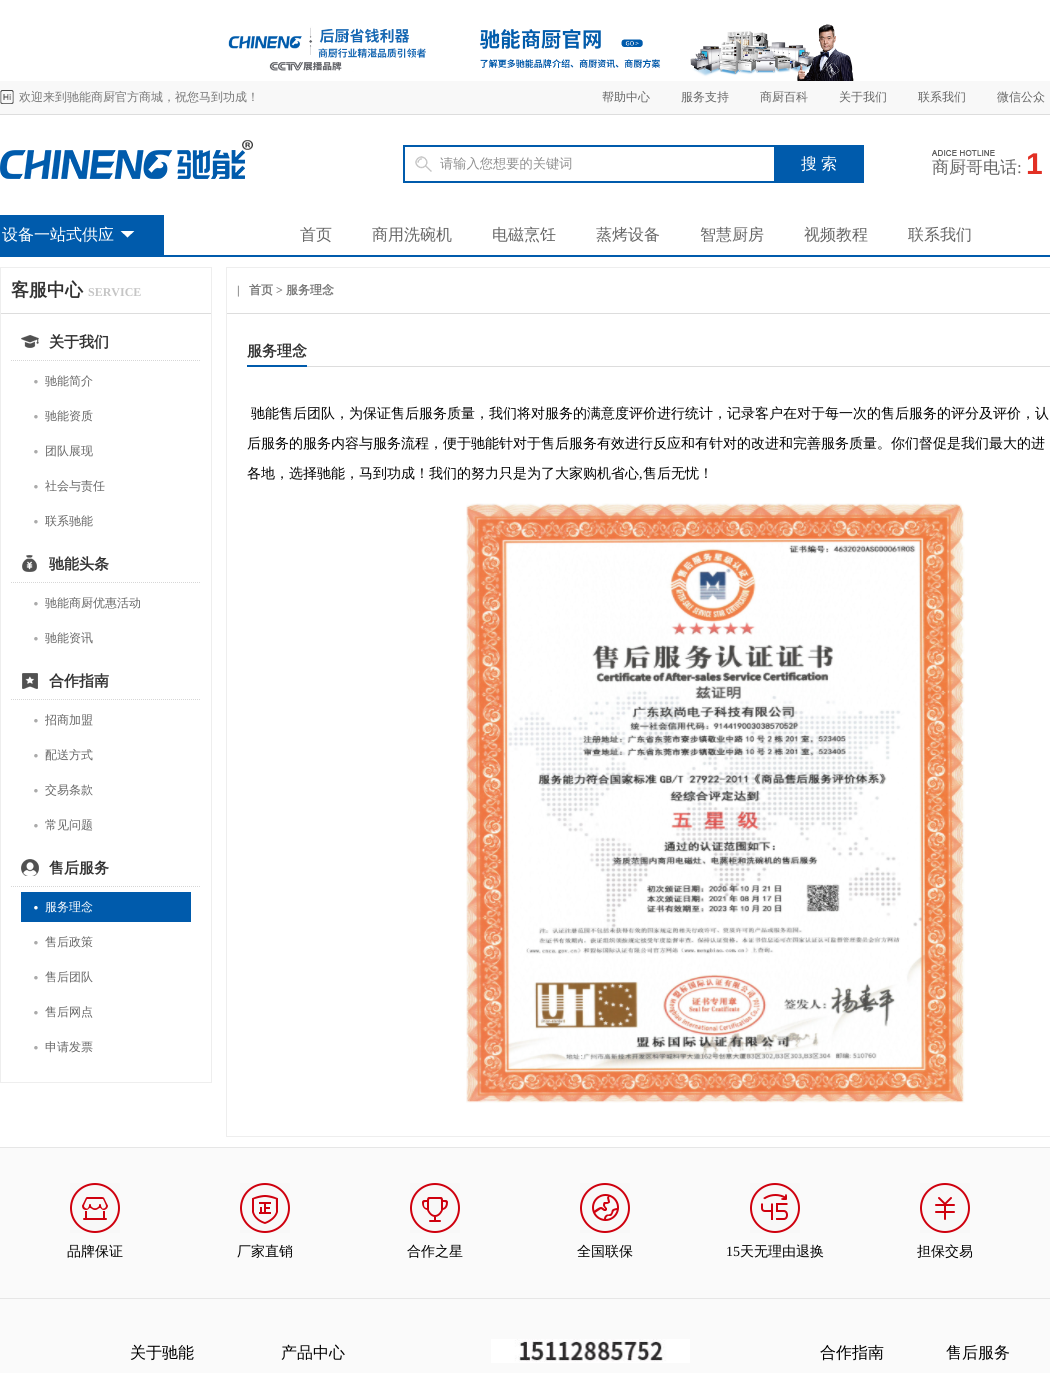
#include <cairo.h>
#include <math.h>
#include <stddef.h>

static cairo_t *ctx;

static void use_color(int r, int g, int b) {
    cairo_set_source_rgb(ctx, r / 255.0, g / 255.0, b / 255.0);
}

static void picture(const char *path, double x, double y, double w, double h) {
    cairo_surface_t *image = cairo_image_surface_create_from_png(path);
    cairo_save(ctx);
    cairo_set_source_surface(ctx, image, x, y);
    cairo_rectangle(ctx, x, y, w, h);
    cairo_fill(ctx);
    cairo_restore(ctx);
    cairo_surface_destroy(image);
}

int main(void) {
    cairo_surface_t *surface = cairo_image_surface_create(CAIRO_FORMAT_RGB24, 1050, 1373);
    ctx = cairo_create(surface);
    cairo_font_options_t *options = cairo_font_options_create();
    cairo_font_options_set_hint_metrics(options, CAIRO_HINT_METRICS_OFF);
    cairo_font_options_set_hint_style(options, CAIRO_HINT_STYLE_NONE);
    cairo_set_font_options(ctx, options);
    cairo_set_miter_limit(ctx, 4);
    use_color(255, 255, 255);
    cairo_paint(ctx);
    picture("img1.png", 228, 24, 626, 57);
    use_color(248, 248, 248);
    cairo_rectangle(ctx, 0, 81, 1050, 33);
    cairo_fill(ctx);
    use_color(221, 221, 221);
    cairo_rectangle(ctx, 0, 114, 1050, 1);
    cairo_fill(ctx);
    picture("img2.png", 0, 90, 14, 14);
    cairo_select_font_face(ctx, "WenQuanYi Zen Hei Medium", CAIRO_FONT_SLANT_NORMAL, CAIRO_FONT_WEIGHT_NORMAL);
    cairo_set_font_size(ctx, 12);
    use_color(119, 119, 119);
    cairo_move_to(ctx, 19, 101);
    cairo_show_text(ctx, "欢迎来到驰能商厨官方商城，祝您马到功成！");
    use_color(102, 102, 102);
    cairo_move_to(ctx, 602, 101);
    cairo_show_text(ctx, "帮助中心");
    cairo_move_to(ctx, 681, 101);
    cairo_show_text(ctx, "服务支持");
    cairo_move_to(ctx, 760, 101);
    cairo_show_text(ctx, "商厨百科");
    cairo_move_to(ctx, 839, 101);
    cairo_show_text(ctx, "关于我们");
    cairo_move_to(ctx, 918, 101);
    cairo_show_text(ctx, "联系我们");
    cairo_move_to(ctx, 997, 101);
    cairo_show_text(ctx, "微信公众");
    use_color(0, 91, 172);
    cairo_rectangle(ctx, 0, 215, 164, 40);
    cairo_fill(ctx);
    picture("img3.png", 120, 231, 15, 7);
    cairo_set_font_size(ctx, 16);
    use_color(255, 255, 255);
    cairo_move_to(ctx, 2, 240);
    cairo_show_text(ctx, "设备一站式供应");
    use_color(0, 91, 172);
    cairo_rectangle(ctx, 0, 255, 1050, 2);
    cairo_fill(ctx);
    picture("img4.png", 0, 140, 253, 39);
    cairo_rectangle(ctx, 404, 146, 459, 36);
    cairo_stroke(ctx);
    picture("img5.png", 415, 156, 17, 16);
    cairo_set_font_size(ctx, 13.25);
    use_color(144, 144, 144);
    cairo_move_to(ctx, 440, 168);
    cairo_show_text(ctx, "请输入您想要的关键词");
    use_color(0, 91, 172);
    cairo_rectangle(ctx, 774, 147, 88, 34);
    cairo_fill(ctx);
    cairo_set_font_size(ctx, 16);
    use_color(255, 255, 255);
    cairo_move_to(ctx, 801, 169);
    cairo_show_text(ctx, "搜");
    cairo_move_to(ctx, 821, 169);
    cairo_show_text(ctx, "索");
    picture("img6.png", 932, 150, 63, 6);
    cairo_set_font_size(ctx, 17);
    use_color(102, 102, 102);
    cairo_move_to(ctx, 932, 173);
    cairo_show_text(ctx, "商厨哥电话");
    cairo_select_font_face(ctx, "Liberation Serif", CAIRO_FONT_SLANT_NORMAL, CAIRO_FONT_WEIGHT_NORMAL);
    cairo_move_to(ctx, 1017, 173);
    cairo_show_text(ctx, ":");
    cairo_select_font_face(ctx, "Liberation Sans", CAIRO_FONT_SLANT_NORMAL, CAIRO_FONT_WEIGHT_BOLD);
    cairo_set_font_size(ctx, 30);
    use_color(226, 48, 37);
    cairo_move_to(ctx, 1026, 174);
    cairo_show_text(ctx, "1");
    cairo_select_font_face(ctx, "WenQuanYi Zen Hei Medium", CAIRO_FONT_SLANT_NORMAL, CAIRO_FONT_WEIGHT_NORMAL);
    cairo_set_font_size(ctx, 16);
    use_color(102, 102, 102);
    cairo_move_to(ctx, 300, 240);
    cairo_show_text(ctx, "首页");
    cairo_move_to(ctx, 372, 240);
    cairo_show_text(ctx, "商用洗碗机");
    cairo_move_to(ctx, 492, 240);
    cairo_show_text(ctx, "电磁烹饪");
    cairo_move_to(ctx, 596, 240);
    cairo_show_text(ctx, "蒸烤设备");
    cairo_move_to(ctx, 700, 240);
    cairo_show_text(ctx, "智慧厨房");
    cairo_move_to(ctx, 804, 240);
    cairo_show_text(ctx, "视频教程");
    cairo_move_to(ctx, 908, 240);
    cairo_show_text(ctx, "联系我们");
    cairo_rectangle(ctx, 0.5, 267.5, 211, 815);
    use_color(238, 238, 238);
    cairo_set_line_width(ctx, 1);
    cairo_stroke(ctx);
    use_color(221, 221, 221);
    cairo_rectangle(ctx, 1, 313, 210, 1);
    cairo_fill(ctx);
    cairo_select_font_face(ctx, "WenQuanYi Zen Hei", CAIRO_FONT_SLANT_NORMAL, CAIRO_FONT_WEIGHT_BOLD);
    cairo_set_font_size(ctx, 18);
    use_color(51, 51, 51);
    cairo_move_to(ctx, 11, 296);
    cairo_show_text(ctx, "客服中心");
    cairo_select_font_face(ctx, "Liberation Serif", CAIRO_FONT_SLANT_NORMAL, CAIRO_FONT_WEIGHT_BOLD);
    cairo_set_font_size(ctx, 12);
    use_color(197, 197, 197);
    cairo_move_to(ctx, 88, 296);
    cairo_show_text(ctx, "SERVICE");
    cairo_new_path(ctx);
    cairo_move_to(ctx, 11, 360.5);
    cairo_line_to(ctx, 201, 360.5);
    use_color(215, 215, 215);
    cairo_set_dash(ctx, (double[]){1, 1}, 2, 0);
    cairo_stroke(ctx);
    picture("img7.png", 21, 335, 18, 13);
    cairo_select_font_face(ctx, "WenQuanYi Zen Hei", CAIRO_FONT_SLANT_NORMAL, CAIRO_FONT_WEIGHT_BOLD);
    cairo_set_font_size(ctx, 15);
    use_color(51, 51, 51);
    cairo_move_to(ctx, 49, 347);
    cairo_show_text(ctx, "关于我们");
    cairo_select_font_face(ctx, "Liberation Serif", CAIRO_FONT_SLANT_ITALIC, CAIRO_FONT_WEIGHT_BOLD);
    cairo_set_font_size(ctx, 22);
    use_color(170, 170, 170);
    cairo_move_to(ctx, 33, 389);
    cairo_show_text(ctx, "·");
    cairo_select_font_face(ctx, "WenQuanYi Zen Hei Medium", CAIRO_FONT_SLANT_NORMAL, CAIRO_FONT_WEIGHT_NORMAL);
    cairo_set_font_size(ctx, 12);
    use_color(102, 102, 102);
    cairo_move_to(ctx, 45, 385);
    cairo_show_text(ctx, "驰能简介");
    cairo_select_font_face(ctx, "Liberation Serif", CAIRO_FONT_SLANT_ITALIC, CAIRO_FONT_WEIGHT_BOLD);
    cairo_set_font_size(ctx, 22);
    use_color(170, 170, 170);
    cairo_move_to(ctx, 33, 424);
    cairo_show_text(ctx, "·");
    cairo_select_font_face(ctx, "WenQuanYi Zen Hei Medium", CAIRO_FONT_SLANT_NORMAL, CAIRO_FONT_WEIGHT_NORMAL);
    cairo_set_font_size(ctx, 12);
    use_color(102, 102, 102);
    cairo_move_to(ctx, 45, 420);
    cairo_show_text(ctx, "驰能资质");
    cairo_select_font_face(ctx, "Liberation Serif", CAIRO_FONT_SLANT_ITALIC, CAIRO_FONT_WEIGHT_BOLD);
    cairo_set_font_size(ctx, 22);
    use_color(170, 170, 170);
    cairo_move_to(ctx, 33, 459);
    cairo_show_text(ctx, "·");
    cairo_select_font_face(ctx, "WenQuanYi Zen Hei Medium", CAIRO_FONT_SLANT_NORMAL, CAIRO_FONT_WEIGHT_NORMAL);
    cairo_set_font_size(ctx, 12);
    use_color(102, 102, 102);
    cairo_move_to(ctx, 45, 455);
    cairo_show_text(ctx, "团队展现");
    cairo_select_font_face(ctx, "Liberation Serif", CAIRO_FONT_SLANT_ITALIC, CAIRO_FONT_WEIGHT_BOLD);
    cairo_set_font_size(ctx, 22);
    use_color(170, 170, 170);
    cairo_move_to(ctx, 33, 494);
    cairo_show_text(ctx, "·");
    cairo_select_font_face(ctx, "WenQuanYi Zen Hei Medium", CAIRO_FONT_SLANT_NORMAL, CAIRO_FONT_WEIGHT_NORMAL);
    cairo_set_font_size(ctx, 12);
    use_color(102, 102, 102);
    cairo_move_to(ctx, 45, 490);
    cairo_show_text(ctx, "社会与责任");
    cairo_select_font_face(ctx, "Liberation Serif", CAIRO_FONT_SLANT_ITALIC, CAIRO_FONT_WEIGHT_BOLD);
    cairo_set_font_size(ctx, 22);
    use_color(170, 170, 170);
    cairo_move_to(ctx, 33, 529);
    cairo_show_text(ctx, "·");
    cairo_select_font_face(ctx, "WenQuanYi Zen Hei Medium", CAIRO_FONT_SLANT_NORMAL, CAIRO_FONT_WEIGHT_NORMAL);
    cairo_set_font_size(ctx, 12);
    use_color(102, 102, 102);
    cairo_move_to(ctx, 45, 525);
    cairo_show_text(ctx, "联系驰能");
    cairo_new_path(ctx);
    cairo_move_to(ctx, 11, 582.5);
    cairo_line_to(ctx, 201, 582.5);
    use_color(215, 215, 215);
    cairo_stroke(ctx);
    picture("img8.png", 22, 555, 15, 17);
    cairo_select_font_face(ctx, "WenQuanYi Zen Hei", CAIRO_FONT_SLANT_NORMAL, CAIRO_FONT_WEIGHT_BOLD);
    cairo_set_font_size(ctx, 15);
    use_color(51, 51, 51);
    cairo_move_to(ctx, 49, 569);
    cairo_show_text(ctx, "驰能头条");
    cairo_select_font_face(ctx, "Liberation Serif", CAIRO_FONT_SLANT_ITALIC, CAIRO_FONT_WEIGHT_BOLD);
    cairo_set_font_size(ctx, 22);
    use_color(170, 170, 170);
    cairo_move_to(ctx, 33, 611);
    cairo_show_text(ctx, "·");
    cairo_select_font_face(ctx, "WenQuanYi Zen Hei Medium", CAIRO_FONT_SLANT_NORMAL, CAIRO_FONT_WEIGHT_NORMAL);
    cairo_set_font_size(ctx, 12);
    use_color(102, 102, 102);
    cairo_move_to(ctx, 45, 607);
    cairo_show_text(ctx, "驰能商厨优惠活动");
    cairo_select_font_face(ctx, "Liberation Serif", CAIRO_FONT_SLANT_ITALIC, CAIRO_FONT_WEIGHT_BOLD);
    cairo_set_font_size(ctx, 22);
    use_color(170, 170, 170);
    cairo_move_to(ctx, 33, 646);
    cairo_show_text(ctx, "·");
    cairo_select_font_face(ctx, "WenQuanYi Zen Hei Medium", CAIRO_FONT_SLANT_NORMAL, CAIRO_FONT_WEIGHT_NORMAL);
    cairo_set_font_size(ctx, 12);
    use_color(102, 102, 102);
    cairo_move_to(ctx, 45, 642);
    cairo_show_text(ctx, "驰能资讯");
    cairo_new_path(ctx);
    cairo_move_to(ctx, 11, 699.5);
    cairo_line_to(ctx, 201, 699.5);
    use_color(215, 215, 215);
    cairo_stroke(ctx);
    picture("img9.png", 22, 673, 16, 16);
    cairo_select_font_face(ctx, "WenQuanYi Zen Hei", CAIRO_FONT_SLANT_NORMAL, CAIRO_FONT_WEIGHT_BOLD);
    cairo_set_font_size(ctx, 15);
    use_color(51, 51, 51);
    cairo_move_to(ctx, 49, 686);
    cairo_show_text(ctx, "合作指南");
    cairo_select_font_face(ctx, "Liberation Serif", CAIRO_FONT_SLANT_ITALIC, CAIRO_FONT_WEIGHT_BOLD);
    cairo_set_font_size(ctx, 22);
    use_color(170, 170, 170);
    cairo_move_to(ctx, 33, 728);
    cairo_show_text(ctx, "·");
    cairo_select_font_face(ctx, "WenQuanYi Zen Hei Medium", CAIRO_FONT_SLANT_NORMAL, CAIRO_FONT_WEIGHT_NORMAL);
    cairo_set_font_size(ctx, 12);
    use_color(102, 102, 102);
    cairo_move_to(ctx, 45, 724);
    cairo_show_text(ctx, "招商加盟");
    cairo_select_font_face(ctx, "Liberation Serif", CAIRO_FONT_SLANT_ITALIC, CAIRO_FONT_WEIGHT_BOLD);
    cairo_set_font_size(ctx, 22);
    use_color(170, 170, 170);
    cairo_move_to(ctx, 33, 763);
    cairo_show_text(ctx, "·");
    cairo_select_font_face(ctx, "WenQuanYi Zen Hei Medium", CAIRO_FONT_SLANT_NORMAL, CAIRO_FONT_WEIGHT_NORMAL);
    cairo_set_font_size(ctx, 12);
    use_color(102, 102, 102);
    cairo_move_to(ctx, 45, 759);
    cairo_show_text(ctx, "配送方式");
    cairo_select_font_face(ctx, "Liberation Serif", CAIRO_FONT_SLANT_ITALIC, CAIRO_FONT_WEIGHT_BOLD);
    cairo_set_font_size(ctx, 22);
    use_color(170, 170, 170);
    cairo_move_to(ctx, 33, 798);
    cairo_show_text(ctx, "·");
    cairo_select_font_face(ctx, "WenQuanYi Zen Hei Medium", CAIRO_FONT_SLANT_NORMAL, CAIRO_FONT_WEIGHT_NORMAL);
    cairo_set_font_size(ctx, 12);
    use_color(102, 102, 102);
    cairo_move_to(ctx, 45, 794);
    cairo_show_text(ctx, "交易条款");
    cairo_select_font_face(ctx, "Liberation Serif", CAIRO_FONT_SLANT_ITALIC, CAIRO_FONT_WEIGHT_BOLD);
    cairo_set_font_size(ctx, 22);
    use_color(170, 170, 170);
    cairo_move_to(ctx, 33, 833);
    cairo_show_text(ctx, "·");
    cairo_select_font_face(ctx, "WenQuanYi Zen Hei Medium", CAIRO_FONT_SLANT_NORMAL, CAIRO_FONT_WEIGHT_NORMAL);
    cairo_set_font_size(ctx, 12);
    use_color(102, 102, 102);
    cairo_move_to(ctx, 45, 829);
    cairo_show_text(ctx, "常见问题");
    cairo_new_path(ctx);
    cairo_move_to(ctx, 11, 886.5);
    cairo_line_to(ctx, 201, 886.5);
    use_color(215, 215, 215);
    cairo_stroke(ctx);
    picture("img10.png", 21, 859, 18, 17);
    cairo_select_font_face(ctx, "WenQuanYi Zen Hei", CAIRO_FONT_SLANT_NORMAL, CAIRO_FONT_WEIGHT_BOLD);
    cairo_set_font_size(ctx, 15);
    use_color(51, 51, 51);
    cairo_move_to(ctx, 49, 873);
    cairo_show_text(ctx, "售后服务");
    use_color(0, 91, 172);
    cairo_rectangle(ctx, 21, 892, 170, 30);
    cairo_fill(ctx);
    cairo_select_font_face(ctx, "Liberation Serif", CAIRO_FONT_SLANT_ITALIC, CAIRO_FONT_WEIGHT_BOLD);
    cairo_set_font_size(ctx, 22);
    use_color(255, 255, 255);
    cairo_move_to(ctx, 33, 915);
    cairo_show_text(ctx, "·");
    cairo_select_font_face(ctx, "WenQuanYi Zen Hei Medium", CAIRO_FONT_SLANT_NORMAL, CAIRO_FONT_WEIGHT_NORMAL);
    cairo_set_font_size(ctx, 12);
    cairo_move_to(ctx, 45, 911);
    cairo_show_text(ctx, "服务理念");
    cairo_select_font_face(ctx, "Liberation Serif", CAIRO_FONT_SLANT_ITALIC, CAIRO_FONT_WEIGHT_BOLD);
    cairo_set_font_size(ctx, 22);
    use_color(170, 170, 170);
    cairo_move_to(ctx, 33, 950);
    cairo_show_text(ctx, "·");
    cairo_select_font_face(ctx, "WenQuanYi Zen Hei Medium", CAIRO_FONT_SLANT_NORMAL, CAIRO_FONT_WEIGHT_NORMAL);
    cairo_set_font_size(ctx, 12);
    use_color(102, 102, 102);
    cairo_move_to(ctx, 45, 946);
    cairo_show_text(ctx, "售后政策");
    cairo_select_font_face(ctx, "Liberation Serif", CAIRO_FONT_SLANT_ITALIC, CAIRO_FONT_WEIGHT_BOLD);
    cairo_set_font_size(ctx, 22);
    use_color(170, 170, 170);
    cairo_move_to(ctx, 33, 985);
    cairo_show_text(ctx, "·");
    cairo_select_font_face(ctx, "WenQuanYi Zen Hei Medium", CAIRO_FONT_SLANT_NORMAL, CAIRO_FONT_WEIGHT_NORMAL);
    cairo_set_font_size(ctx, 12);
    use_color(102, 102, 102);
    cairo_move_to(ctx, 45, 981);
    cairo_show_text(ctx, "售后团队");
    cairo_select_font_face(ctx, "Liberation Serif", CAIRO_FONT_SLANT_ITALIC, CAIRO_FONT_WEIGHT_BOLD);
    cairo_set_font_size(ctx, 22);
    use_color(170, 170, 170);
    cairo_move_to(ctx, 33, 1020);
    cairo_show_text(ctx, "·");
    cairo_select_font_face(ctx, "WenQuanYi Zen Hei Medium", CAIRO_FONT_SLANT_NORMAL, CAIRO_FONT_WEIGHT_NORMAL);
    cairo_set_font_size(ctx, 12);
    use_color(102, 102, 102);
    cairo_move_to(ctx, 45, 1016);
    cairo_show_text(ctx, "售后网点");
    cairo_select_font_face(ctx, "Liberation Serif", CAIRO_FONT_SLANT_ITALIC, CAIRO_FONT_WEIGHT_BOLD);
    cairo_set_font_size(ctx, 22);
    use_color(170, 170, 170);
    cairo_move_to(ctx, 33, 1055);
    cairo_show_text(ctx, "·");
    cairo_select_font_face(ctx, "WenQuanYi Zen Hei Medium", CAIRO_FONT_SLANT_NORMAL, CAIRO_FONT_WEIGHT_NORMAL);
    cairo_set_font_size(ctx, 12);
    use_color(102, 102, 102);
    cairo_move_to(ctx, 45, 1051);
    cairo_show_text(ctx, "申请发票");
    cairo_rectangle(ctx, 226.5, 267.5, 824, 869);
    use_color(238, 238, 238);
    cairo_set_dash(ctx, NULL, 0, 0);
    cairo_stroke(ctx);
    use_color(221, 221, 221);
    cairo_rectangle(ctx, 227, 313, 823, 1);
    cairo_fill(ctx);
    cairo_select_font_face(ctx, "Liberation Serif", CAIRO_FONT_SLANT_NORMAL, CAIRO_FONT_WEIGHT_BOLD);
    use_color(119, 119, 119);
    cairo_move_to(ctx, 237, 294);
    cairo_show_text(ctx, "|");
    cairo_select_font_face(ctx, "WenQuanYi Zen Hei", CAIRO_FONT_SLANT_NORMAL, CAIRO_FONT_WEIGHT_BOLD);
    cairo_move_to(ctx, 249, 294);
    cairo_show_text(ctx, "首页");
    cairo_select_font_face(ctx, "Liberation Serif", CAIRO_FONT_SLANT_NORMAL, CAIRO_FONT_WEIGHT_BOLD);
    cairo_move_to(ctx, 276, 294);
    cairo_show_text(ctx, ">");
    cairo_select_font_face(ctx, "WenQuanYi Zen Hei", CAIRO_FONT_SLANT_NORMAL, CAIRO_FONT_WEIGHT_BOLD);
    cairo_move_to(ctx, 286, 294);
    cairo_show_text(ctx, "服务理念");
    use_color(221, 221, 221);
    cairo_rectangle(ctx, 307, 366, 743, 1);
    cairo_fill(ctx);
    use_color(0, 91, 172);
    cairo_rectangle(ctx, 247, 365, 60, 2);
    cairo_fill(ctx);
    cairo_set_font_size(ctx, 15);
    use_color(51, 51, 51);
    cairo_move_to(ctx, 247, 356);
    cairo_show_text(ctx, "服务理念");
    cairo_select_font_face(ctx, "WenQuanYi Zen Hei Medium", CAIRO_FONT_SLANT_NORMAL, CAIRO_FONT_WEIGHT_NORMAL);
    cairo_set_font_size(ctx, 14);
    use_color(0, 0, 0);
    cairo_move_to(ctx, 251, 418);
    cairo_show_text(ctx, "驰能售后团队，为保证售后服务质量，我们将对服务的满意度评价进行统计，记录客户在对于每一次的售后服务的评分及评价，认");
    cairo_move_to(ctx, 247, 448);
    cairo_show_text(ctx, "后服务的服务内容与服务流程，便于驰能针对于售后服务有效进行反应和有针对的改进和完善服务质量。你们督促是我们最大的进");
    cairo_move_to(ctx, 247, 478);
    cairo_show_text(ctx, "各地，选择驰能，马到功成！我们的努力只是为了大家购机省心");
    cairo_select_font_face(ctx, "Liberation Serif", CAIRO_FONT_SLANT_NORMAL, CAIRO_FONT_WEIGHT_NORMAL);
    cairo_move_to(ctx, 639, 478);
    cairo_show_text(ctx, ",");
    cairo_select_font_face(ctx, "WenQuanYi Zen Hei Medium", CAIRO_FONT_SLANT_NORMAL, CAIRO_FONT_WEIGHT_NORMAL);
    cairo_move_to(ctx, 643, 478);
    cairo_show_text(ctx, "售后无忧！");
    picture("img11.png", 466, 503, 499, 600);
    use_color(250, 250, 250);
    cairo_rectangle(ctx, 0, 1148, 1050, 225);
    cairo_fill(ctx);
    use_color(230, 230, 230);
    cairo_rectangle(ctx, 0, 1147, 1050, 1);
    cairo_fill(ctx);
    picture("img12.png", 70, 1183, 50, 50);
    use_color(0, 0, 0);
    cairo_move_to(ctx, 67, 1256);
    cairo_show_text(ctx, "品牌保证");
    picture("img13.png", 240, 1183, 50, 50);
    cairo_move_to(ctx, 237, 1256);
    cairo_show_text(ctx, "厂家直销");
    picture("img14.png", 410, 1183, 50, 50);
    cairo_move_to(ctx, 407, 1256);
    cairo_show_text(ctx, "合作之星");
    picture("img15.png", 580, 1183, 50, 50);
    cairo_move_to(ctx, 577, 1256);
    cairo_show_text(ctx, "全国联保");
    picture("img16.png", 750, 1183, 50, 50);
    cairo_select_font_face(ctx, "Liberation Serif", CAIRO_FONT_SLANT_NORMAL, CAIRO_FONT_WEIGHT_NORMAL);
    cairo_move_to(ctx, 726, 1256);
    cairo_show_text(ctx, "15");
    cairo_select_font_face(ctx, "WenQuanYi Zen Hei Medium", CAIRO_FONT_SLANT_NORMAL, CAIRO_FONT_WEIGHT_NORMAL);
    cairo_move_to(ctx, 740, 1256);
    cairo_show_text(ctx, "天无理由退换");
    picture("img17.png", 920, 1183, 50, 50);
    cairo_move_to(ctx, 917, 1256);
    cairo_show_text(ctx, "担保交易");
    use_color(230, 230, 230);
    cairo_rectangle(ctx, 0, 1298, 1050, 1);
    cairo_fill(ctx);
    cairo_set_font_size(ctx, 16);
    use_color(0, 0, 0);
    cairo_move_to(ctx, 130, 1358);
    cairo_show_text(ctx, "关于驰能");
    cairo_move_to(ctx, 281, 1358);
    cairo_show_text(ctx, "产品中心");
    picture("img18.png", 491, 1339, 199, 24);
    cairo_move_to(ctx, 820, 1358);
    cairo_show_text(ctx, "合作指南");
    cairo_move_to(ctx, 946, 1358);
    cairo_show_text(ctx, "售后服务");
    cairo_surface_write_to_png(surface, "result.png");
    cairo_font_options_destroy(options);
    cairo_destroy(ctx);
    cairo_surface_destroy(surface);
    return 0;
}
